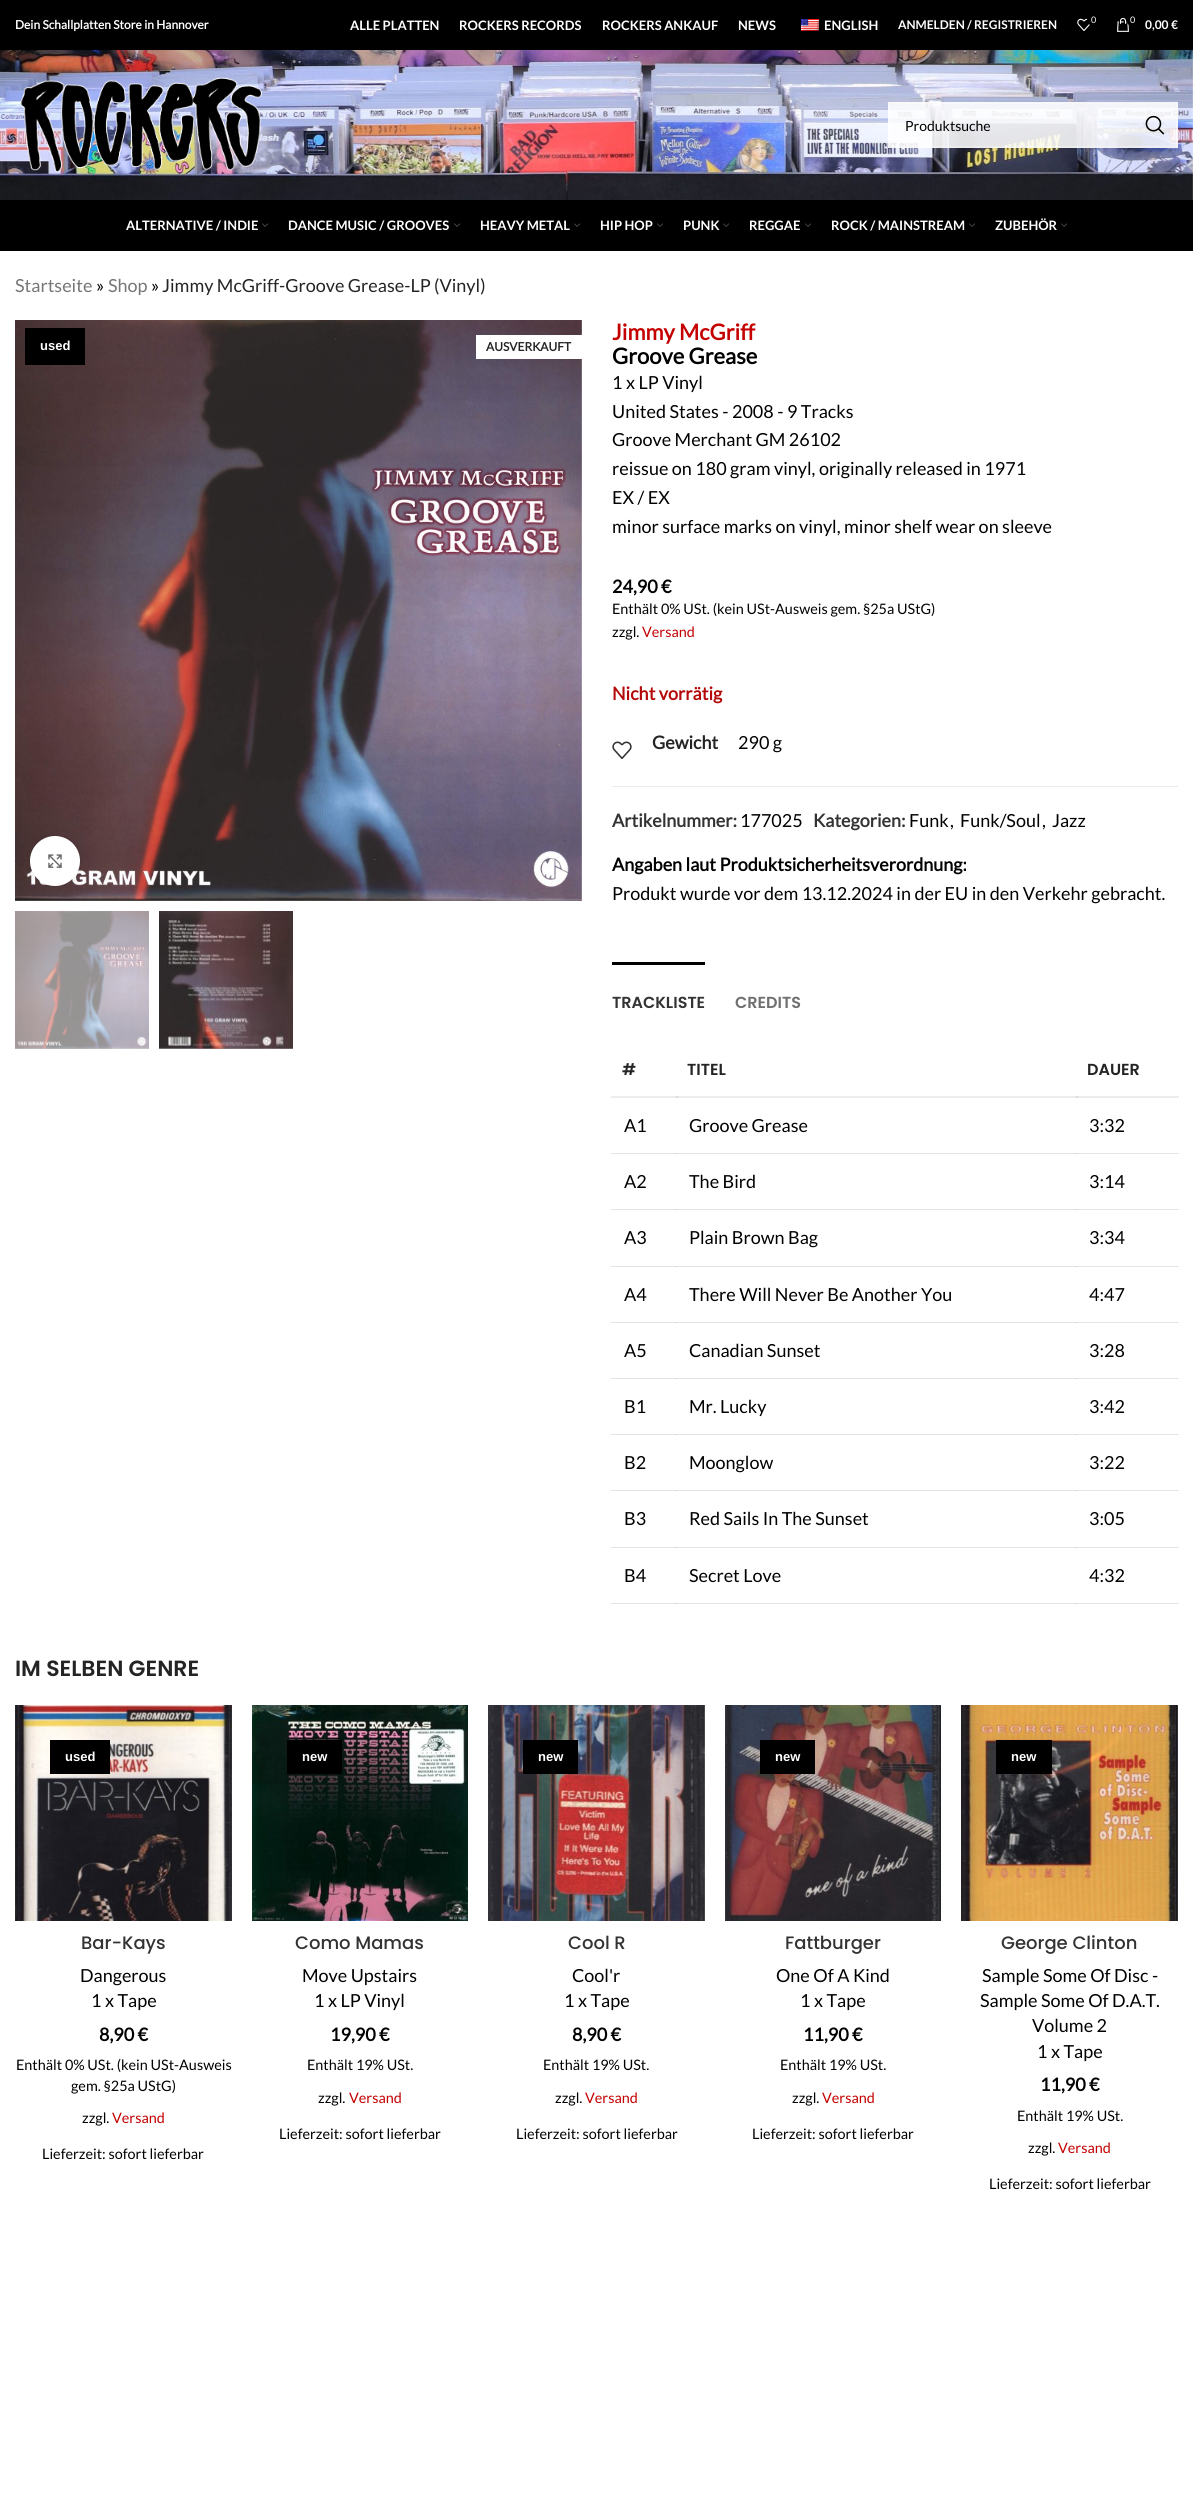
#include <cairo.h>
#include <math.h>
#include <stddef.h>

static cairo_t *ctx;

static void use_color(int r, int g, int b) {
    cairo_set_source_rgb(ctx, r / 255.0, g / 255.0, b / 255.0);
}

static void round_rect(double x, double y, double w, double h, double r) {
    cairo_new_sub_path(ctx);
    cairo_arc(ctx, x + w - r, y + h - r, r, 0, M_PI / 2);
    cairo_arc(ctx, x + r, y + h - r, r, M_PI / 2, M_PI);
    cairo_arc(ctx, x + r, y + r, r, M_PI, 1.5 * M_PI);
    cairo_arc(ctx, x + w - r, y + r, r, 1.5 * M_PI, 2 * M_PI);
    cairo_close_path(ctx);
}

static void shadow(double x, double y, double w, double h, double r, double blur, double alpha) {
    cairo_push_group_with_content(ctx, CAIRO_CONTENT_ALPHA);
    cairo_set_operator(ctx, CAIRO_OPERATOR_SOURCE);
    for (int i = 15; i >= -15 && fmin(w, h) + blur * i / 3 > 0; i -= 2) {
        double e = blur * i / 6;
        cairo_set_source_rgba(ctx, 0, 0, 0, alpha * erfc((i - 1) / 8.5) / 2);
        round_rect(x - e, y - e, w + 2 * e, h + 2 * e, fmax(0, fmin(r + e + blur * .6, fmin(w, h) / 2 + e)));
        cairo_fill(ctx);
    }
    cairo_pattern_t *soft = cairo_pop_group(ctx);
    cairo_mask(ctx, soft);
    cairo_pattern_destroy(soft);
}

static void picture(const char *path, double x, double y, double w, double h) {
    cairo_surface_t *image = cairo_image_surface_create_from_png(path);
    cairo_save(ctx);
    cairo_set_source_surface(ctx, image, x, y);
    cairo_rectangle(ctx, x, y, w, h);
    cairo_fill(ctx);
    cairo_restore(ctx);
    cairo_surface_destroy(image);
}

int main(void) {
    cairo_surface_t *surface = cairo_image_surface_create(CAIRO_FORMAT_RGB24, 1193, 2496);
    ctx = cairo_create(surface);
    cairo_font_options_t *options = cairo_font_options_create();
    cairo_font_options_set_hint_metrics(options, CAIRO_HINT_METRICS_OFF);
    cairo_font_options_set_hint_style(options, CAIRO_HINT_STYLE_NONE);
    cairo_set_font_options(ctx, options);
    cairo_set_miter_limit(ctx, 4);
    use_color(255, 255, 255);
    cairo_paint(ctx);
    use_color(237, 237, 237);
    cairo_rectangle(ctx, 611, 1096, 467, 2);
    cairo_fill(ctx);
    use_color(220, 220, 220);
    cairo_rectangle(ctx, 676, 1096, 2, 2);
    cairo_fill(ctx);
    use_color(227, 227, 227);
    cairo_rectangle(ctx, 611, 1153, 466, 1);
    cairo_fill(ctx);
    use_color(202, 202, 202);
    cairo_rectangle(ctx, 676, 1153, 1, 1);
    cairo_fill(ctx);
    use_color(227, 227, 227);
    cairo_rectangle(ctx, 611, 1209, 466, 1);
    cairo_fill(ctx);
    use_color(202, 202, 202);
    cairo_rectangle(ctx, 676, 1209, 1, 1);
    cairo_fill(ctx);
    use_color(227, 227, 227);
    cairo_rectangle(ctx, 611, 1266, 466, 1);
    cairo_fill(ctx);
    use_color(202, 202, 202);
    cairo_rectangle(ctx, 676, 1266, 1, 1);
    cairo_fill(ctx);
    use_color(227, 227, 227);
    cairo_rectangle(ctx, 611, 1322, 466, 1);
    cairo_fill(ctx);
    use_color(202, 202, 202);
    cairo_rectangle(ctx, 676, 1322, 1, 1);
    cairo_fill(ctx);
    use_color(227, 227, 227);
    cairo_rectangle(ctx, 611, 1378, 466, 1);
    cairo_fill(ctx);
    use_color(202, 202, 202);
    cairo_rectangle(ctx, 676, 1378, 1, 1);
    cairo_fill(ctx);
    use_color(227, 227, 227);
    cairo_rectangle(ctx, 611, 1434, 466, 1);
    cairo_fill(ctx);
    use_color(202, 202, 202);
    cairo_rectangle(ctx, 676, 1434, 1, 1);
    cairo_fill(ctx);
    use_color(227, 227, 227);
    cairo_rectangle(ctx, 611, 1490, 466, 1);
    cairo_fill(ctx);
    use_color(202, 202, 202);
    cairo_rectangle(ctx, 676, 1490, 1, 1);
    cairo_fill(ctx);
    use_color(227, 227, 227);
    cairo_rectangle(ctx, 611, 1547, 466, 1);
    cairo_fill(ctx);
    use_color(202, 202, 202);
    cairo_rectangle(ctx, 676, 1547, 1, 1);
    cairo_fill(ctx);
    use_color(227, 227, 227);
    cairo_rectangle(ctx, 611, 1603, 466, 1);
    cairo_fill(ctx);
    use_color(202, 202, 202);
    cairo_rectangle(ctx, 676, 1603, 1, 1);
    cairo_fill(ctx);
    use_color(0, 0, 0);
    cairo_rectangle(ctx, 0, 0, 1193, 50);
    cairo_fill(ctx);
    cairo_select_font_face(ctx, "Lato", CAIRO_FONT_SLANT_NORMAL, CAIRO_FONT_WEIGHT_BOLD);
    cairo_set_font_size(ctx, 12);
    use_color(255, 255, 255);
    cairo_move_to(ctx, 15, 29);
    cairo_show_text(ctx, "Dein Schallplatten Store in Hannover");
    cairo_select_font_face(ctx, "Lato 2", CAIRO_FONT_SLANT_NORMAL, CAIRO_FONT_WEIGHT_BOLD);
    cairo_set_font_size(ctx, 13);
    cairo_move_to(ctx, 350, 30);
    cairo_show_text(ctx, "ALLE PLATTEN");
    cairo_move_to(ctx, 459, 30);
    cairo_show_text(ctx, "ROCKERS RECORDS");
    cairo_move_to(ctx, 602, 30);
    cairo_show_text(ctx, "ROCKERS ANKAUF");
    cairo_move_to(ctx, 738, 30);
    cairo_show_text(ctx, "NEWS");
    picture("img1.png", 801, 19, 18, 12);
    cairo_move_to(ctx, 824, 30);
    cairo_show_text(ctx, "ENGLISH");
    cairo_set_font_size(ctx, 12);
    cairo_move_to(ctx, 898, 29);
    cairo_show_text(ctx, "ANMELDEN / REGISTRIEREN");
    picture("img2.png", 1077, 18, 13, 13);
    use_color(0, 0, 0);
    cairo_arc(ctx, 1093.5, 19.5, 6.5, 0, 2 * M_PI);
    cairo_fill(ctx);
    cairo_select_font_face(ctx, "Lato", CAIRO_FONT_SLANT_NORMAL, CAIRO_FONT_WEIGHT_NORMAL);
    cairo_set_font_size(ctx, 9);
    use_color(255, 255, 255);
    cairo_move_to(ctx, 1091, 23);
    cairo_show_text(ctx, "0");
    picture("img3.png", 1117, 17, 12, 15);
    use_color(0, 0, 0);
    cairo_arc(ctx, 1132.5, 19.5, 6.5, 0, 2 * M_PI);
    cairo_fill(ctx);
    use_color(255, 255, 255);
    cairo_move_to(ctx, 1130, 23);
    cairo_show_text(ctx, "0");
    cairo_select_font_face(ctx, "Lato 2", CAIRO_FONT_SLANT_NORMAL, CAIRO_FONT_WEIGHT_BOLD);
    cairo_set_font_size(ctx, 12);
    cairo_move_to(ctx, 1145, 29);
    cairo_show_text(ctx, "0,00 €");
    picture("img4.png", 0, 50, 1193, 150);
    use_color(0, 0, 0);
    cairo_rectangle(ctx, 0, 200, 1193, 51);
    cairo_fill(ctx);
    picture("img5.png", 20, 77, 242, 96);
    cairo_set_source_rgba(ctx, 1, 1, 1, 0.86);
    cairo_rectangle(ctx, 888, 102, 290, 46);
    cairo_fill(ctx);
    cairo_rectangle(ctx, 889, 103, 288, 44);
    cairo_set_source_rgba(ctx, 1, 1, 1, 0.28);
    cairo_stroke(ctx);
    cairo_select_font_face(ctx, "Lato", CAIRO_FONT_SLANT_NORMAL, CAIRO_FONT_WEIGHT_NORMAL);
    cairo_set_font_size(ctx, 14);
    use_color(0, 0, 0);
    cairo_move_to(ctx, 905, 131);
    cairo_show_text(ctx, "Produktsuche");
    picture("img6.png", 1145, 115, 20, 20);
    cairo_select_font_face(ctx, "Lato 2", CAIRO_FONT_SLANT_NORMAL, CAIRO_FONT_WEIGHT_BOLD);
    cairo_set_font_size(ctx, 13);
    use_color(255, 255, 255);
    cairo_move_to(ctx, 126, 230);
    cairo_show_text(ctx, "ALTERNATIVE / INDIE");
    picture("img7.png", 262, 223, 6, 4);
    cairo_move_to(ctx, 288, 230);
    cairo_show_text(ctx, "DANCE MUSIC / GROOVES");
    picture("img7.png", 454, 223, 6, 4);
    cairo_move_to(ctx, 480, 230);
    cairo_show_text(ctx, "HEAVY METAL");
    picture("img7.png", 574, 223, 6, 4);
    cairo_move_to(ctx, 600, 230);
    cairo_show_text(ctx, "HIP HOP");
    picture("img7.png", 657, 223, 6, 4);
    cairo_move_to(ctx, 683, 230);
    cairo_show_text(ctx, "PUNK");
    picture("img7.png", 723, 223, 6, 4);
    cairo_move_to(ctx, 749, 230);
    cairo_show_text(ctx, "REGGAE");
    picture("img7.png", 805, 223, 6, 4);
    cairo_move_to(ctx, 831, 230);
    cairo_show_text(ctx, "ROCK / MAINSTREAM");
    picture("img7.png", 969, 223, 6, 4);
    cairo_move_to(ctx, 995, 230);
    cairo_show_text(ctx, "ZUBEHÖR");
    picture("img7.png", 1061, 223, 6, 4);
    cairo_select_font_face(ctx, "Lato", CAIRO_FONT_SLANT_NORMAL, CAIRO_FONT_WEIGHT_NORMAL);
    cairo_set_font_size(ctx, 18);
    use_color(118, 118, 118);
    cairo_move_to(ctx, 15, 292);
    cairo_show_text(ctx, "Startseite");
    use_color(0, 0, 0);
    cairo_move_to(ctx, 96, 292);
    cairo_show_text(ctx, "»");
    use_color(118, 118, 118);
    cairo_move_to(ctx, 108, 292);
    cairo_show_text(ctx, "Shop");
    use_color(0, 0, 0);
    cairo_move_to(ctx, 151, 292);
    cairo_show_text(ctx, "»");
    use_color(36, 36, 36);
    cairo_move_to(ctx, 162, 292);
    cairo_show_text(ctx, "Jimmy McGriff-Groove Grease-LP (Vinyl)");
    picture("img8.png", 15, 320, 567, 581);
    use_color(0, 0, 0);
    cairo_rectangle(ctx, 25, 328, 60, 37);
    cairo_fill(ctx);
    cairo_select_font_face(ctx, "Liberation Sans", CAIRO_FONT_SLANT_NORMAL, CAIRO_FONT_WEIGHT_BOLD);
    cairo_set_font_size(ctx, 13);
    use_color(255, 255, 255);
    cairo_move_to(ctx, 40, 350);
    cairo_show_text(ctx, "used");
    cairo_rectangle(ctx, 476, 335, 106, 24);
    cairo_fill(ctx);
    cairo_select_font_face(ctx, "Lato", CAIRO_FONT_SLANT_NORMAL, CAIRO_FONT_WEIGHT_BOLD);
    cairo_set_font_size(ctx, 12);
    use_color(36, 36, 36);
    cairo_move_to(ctx, 486, 351);
    cairo_show_text(ctx, "AUSVERKAUFT");
    use_color(0, 0, 0);
    shadow(30, 836, 50, 50, 25, 2.5, 0.08);
    use_color(255, 255, 255);
    cairo_arc(ctx, 55, 861, 25, 0, 2 * M_PI);
    cairo_fill(ctx);
    cairo_new_path(ctx);
    cairo_move_to(ctx, 18, 867);
    cairo_curve_to(ctx, 14.5, 863.5, 14.5, 858.5, 18, 855);
    use_color(69, 51, 51);
    cairo_set_line_width(ctx, 1);
    cairo_stroke(ctx);
    picture("img9.png", 48, 854, 14, 14);
    picture("img10.png", 15, 911, 134, 138);
    picture("img11.png", 159, 911, 134, 138);
    cairo_set_font_size(ctx, 22);
    use_color(196, 0, 0);
    cairo_move_to(ctx, 612, 340);
    cairo_show_text(ctx, "Jimmy McGriff");
    use_color(0, 0, 0);
    cairo_move_to(ctx, 612, 364);
    cairo_show_text(ctx, "Groove Grease");
    cairo_select_font_face(ctx, "Lato", CAIRO_FONT_SLANT_NORMAL, CAIRO_FONT_WEIGHT_NORMAL);
    cairo_set_font_size(ctx, 18);
    cairo_move_to(ctx, 612, 389);
    cairo_show_text(ctx, "1 x LP Vinyl");
    cairo_move_to(ctx, 612, 418);
    cairo_show_text(ctx, "United States - 2008 - 9 Tracks");
    cairo_move_to(ctx, 612, 446);
    cairo_show_text(ctx, "Groove Merchant GM 26102");
    cairo_move_to(ctx, 612, 475);
    cairo_show_text(ctx, "reissue on 180 gram vinyl, originally released in 1971");
    cairo_move_to(ctx, 612, 504);
    cairo_show_text(ctx, "EX / EX");
    cairo_move_to(ctx, 612, 533);
    cairo_show_text(ctx, "minor surface marks on vinyl, minor shelf wear on sleeve");
    cairo_select_font_face(ctx, "Lato", CAIRO_FONT_SLANT_NORMAL, CAIRO_FONT_WEIGHT_BOLD);
    cairo_move_to(ctx, 612, 593);
    cairo_show_text(ctx, "24,90 €");
    cairo_select_font_face(ctx, "Lato", CAIRO_FONT_SLANT_NORMAL, CAIRO_FONT_WEIGHT_NORMAL);
    cairo_set_font_size(ctx, 14.4);
    cairo_move_to(ctx, 612, 614);
    cairo_show_text(ctx, "Enthält 0% USt. (kein USt-Ausweis gem. §25a UStG)");
    cairo_move_to(ctx, 612, 637);
    cairo_show_text(ctx, "zzgl.");
    use_color(196, 0, 0);
    cairo_move_to(ctx, 642, 637);
    cairo_show_text(ctx, "Versand");
    cairo_select_font_face(ctx, "Lato", CAIRO_FONT_SLANT_NORMAL, CAIRO_FONT_WEIGHT_BOLD);
    cairo_set_font_size(ctx, 18);
    use_color(181, 8, 8);
    cairo_move_to(ctx, 612, 700);
    cairo_show_text(ctx, "Nicht vorrätig");
    picture("img12.png", 612, 741, 20, 18);
    use_color(36, 36, 36);
    cairo_move_to(ctx, 652, 749);
    cairo_show_text(ctx, "Gewicht");
    cairo_select_font_face(ctx, "Lato", CAIRO_FONT_SLANT_NORMAL, CAIRO_FONT_WEIGHT_NORMAL);
    use_color(0, 0, 0);
    cairo_move_to(ctx, 738, 749);
    cairo_show_text(ctx, "290 g");
    use_color(235, 235, 235);
    cairo_rectangle(ctx, 612, 786, 566, 1);
    cairo_fill(ctx);
    cairo_select_font_face(ctx, "Lato", CAIRO_FONT_SLANT_NORMAL, CAIRO_FONT_WEIGHT_BOLD);
    use_color(51, 51, 51);
    cairo_move_to(ctx, 612, 827);
    cairo_show_text(ctx, "Artikelnummer:");
    cairo_select_font_face(ctx, "Lato", CAIRO_FONT_SLANT_NORMAL, CAIRO_FONT_WEIGHT_NORMAL);
    use_color(0, 0, 0);
    cairo_move_to(ctx, 740, 827);
    cairo_show_text(ctx, "177025");
    cairo_select_font_face(ctx, "Lato", CAIRO_FONT_SLANT_NORMAL, CAIRO_FONT_WEIGHT_BOLD);
    use_color(51, 51, 51);
    cairo_move_to(ctx, 813, 827);
    cairo_show_text(ctx, "Kategorien:");
    cairo_select_font_face(ctx, "Lato", CAIRO_FONT_SLANT_NORMAL, CAIRO_FONT_WEIGHT_NORMAL);
    use_color(0, 0, 0);
    cairo_move_to(ctx, 909, 827);
    cairo_show_text(ctx, "Funk");
    cairo_move_to(ctx, 950, 827);
    cairo_show_text(ctx, ",");
    cairo_move_to(ctx, 960, 827);
    cairo_show_text(ctx, "Funk/Soul");
    cairo_move_to(ctx, 1042, 827);
    cairo_show_text(ctx, ",");
    cairo_move_to(ctx, 1052, 827);
    cairo_show_text(ctx, "Jazz");
    cairo_select_font_face(ctx, "Lato", CAIRO_FONT_SLANT_NORMAL, CAIRO_FONT_WEIGHT_BOLD);
    cairo_move_to(ctx, 612, 871);
    cairo_show_text(ctx, "Angaben laut Produktsicherheitsverordnung:");
    cairo_select_font_face(ctx, "Lato", CAIRO_FONT_SLANT_NORMAL, CAIRO_FONT_WEIGHT_NORMAL);
    cairo_move_to(ctx, 612, 900);
    cairo_show_text(ctx, "Produkt wurde vor dem 13.12.2024 in der EU in den Verkehr gebracht.");
    cairo_rectangle(ctx, 612, 962, 93, 3);
    cairo_fill(ctx);
    cairo_select_font_face(ctx, "Poppins SemiBold", CAIRO_FONT_SLANT_NORMAL, CAIRO_FONT_WEIGHT_NORMAL);
    cairo_set_font_size(ctx, 16);
    use_color(51, 51, 51);
    cairo_move_to(ctx, 612, 1008);
    cairo_show_text(ctx, "TRACKLISTE");
    use_color(112, 112, 112);
    cairo_move_to(ctx, 735, 1008);
    cairo_show_text(ctx, "CREDITS");
    use_color(36, 36, 36);
    cairo_move_to(ctx, 622, 1075);
    cairo_show_text(ctx, "#");
    cairo_move_to(ctx, 687, 1075);
    cairo_show_text(ctx, "TITEL");
    use_color(236, 236, 236);
    cairo_rectangle(ctx, 1076, 1096, 103, 2);
    cairo_fill(ctx);
    use_color(219, 219, 219);
    cairo_rectangle(ctx, 1076, 1096, 2, 2);
    cairo_fill(ctx);
    use_color(36, 36, 36);
    cairo_move_to(ctx, 1087, 1075);
    cairo_show_text(ctx, "DAUER");
    cairo_select_font_face(ctx, "Lato", CAIRO_FONT_SLANT_NORMAL, CAIRO_FONT_WEIGHT_NORMAL);
    cairo_set_font_size(ctx, 18);
    use_color(0, 0, 0);
    cairo_move_to(ctx, 624, 1132);
    cairo_show_text(ctx, "A1");
    cairo_move_to(ctx, 689, 1132);
    cairo_show_text(ctx, "Groove Grease");
    use_color(228, 228, 228);
    cairo_rectangle(ctx, 1076, 1153, 103, 1);
    cairo_fill(ctx);
    use_color(203, 203, 203);
    cairo_rectangle(ctx, 1076, 1153, 1, 1);
    cairo_fill(ctx);
    use_color(0, 0, 0);
    cairo_move_to(ctx, 1089, 1132);
    cairo_show_text(ctx, "3:32");
    cairo_move_to(ctx, 624, 1188);
    cairo_show_text(ctx, "A2");
    cairo_move_to(ctx, 689, 1188);
    cairo_show_text(ctx, "The Bird");
    use_color(228, 228, 228);
    cairo_rectangle(ctx, 1076, 1209, 103, 1);
    cairo_fill(ctx);
    use_color(203, 203, 203);
    cairo_rectangle(ctx, 1076, 1209, 1, 1);
    cairo_fill(ctx);
    use_color(0, 0, 0);
    cairo_move_to(ctx, 1089, 1188);
    cairo_show_text(ctx, "3:14");
    cairo_move_to(ctx, 624, 1244);
    cairo_show_text(ctx, "A3");
    cairo_move_to(ctx, 689, 1244);
    cairo_show_text(ctx, "Plain Brown Bag");
    use_color(228, 228, 228);
    cairo_rectangle(ctx, 1076, 1266, 103, 1);
    cairo_fill(ctx);
    use_color(203, 203, 203);
    cairo_rectangle(ctx, 1076, 1266, 1, 1);
    cairo_fill(ctx);
    use_color(0, 0, 0);
    cairo_move_to(ctx, 1089, 1244);
    cairo_show_text(ctx, "3:34");
    cairo_move_to(ctx, 624, 1301);
    cairo_show_text(ctx, "A4");
    cairo_move_to(ctx, 689, 1301);
    cairo_show_text(ctx, "There Will Never Be Another You");
    use_color(228, 228, 228);
    cairo_rectangle(ctx, 1076, 1322, 103, 1);
    cairo_fill(ctx);
    use_color(203, 203, 203);
    cairo_rectangle(ctx, 1076, 1322, 1, 1);
    cairo_fill(ctx);
    use_color(0, 0, 0);
    cairo_move_to(ctx, 1089, 1301);
    cairo_show_text(ctx, "4:47");
    cairo_move_to(ctx, 624, 1357);
    cairo_show_text(ctx, "A5");
    cairo_move_to(ctx, 689, 1357);
    cairo_show_text(ctx, "Canadian Sunset");
    use_color(228, 228, 228);
    cairo_rectangle(ctx, 1076, 1378, 103, 1);
    cairo_fill(ctx);
    use_color(203, 203, 203);
    cairo_rectangle(ctx, 1076, 1378, 1, 1);
    cairo_fill(ctx);
    use_color(0, 0, 0);
    cairo_move_to(ctx, 1089, 1357);
    cairo_show_text(ctx, "3:28");
    cairo_move_to(ctx, 624, 1413);
    cairo_show_text(ctx, "B1");
    cairo_move_to(ctx, 689, 1413);
    cairo_show_text(ctx, "Mr. Lucky");
    use_color(228, 228, 228);
    cairo_rectangle(ctx, 1076, 1434, 103, 1);
    cairo_fill(ctx);
    use_color(203, 203, 203);
    cairo_rectangle(ctx, 1076, 1434, 1, 1);
    cairo_fill(ctx);
    use_color(0, 0, 0);
    cairo_move_to(ctx, 1089, 1413);
    cairo_show_text(ctx, "3:42");
    cairo_move_to(ctx, 624, 1469);
    cairo_show_text(ctx, "B2");
    cairo_move_to(ctx, 689, 1469);
    cairo_show_text(ctx, "Moonglow");
    use_color(228, 228, 228);
    cairo_rectangle(ctx, 1076, 1490, 103, 1);
    cairo_fill(ctx);
    use_color(203, 203, 203);
    cairo_rectangle(ctx, 1076, 1490, 1, 1);
    cairo_fill(ctx);
    use_color(0, 0, 0);
    cairo_move_to(ctx, 1089, 1469);
    cairo_show_text(ctx, "3:22");
    cairo_move_to(ctx, 624, 1525);
    cairo_show_text(ctx, "B3");
    cairo_move_to(ctx, 689, 1525);
    cairo_show_text(ctx, "Red Sails In The Sunset");
    use_color(228, 228, 228);
    cairo_rectangle(ctx, 1076, 1547, 103, 1);
    cairo_fill(ctx);
    use_color(203, 203, 203);
    cairo_rectangle(ctx, 1076, 1547, 1, 1);
    cairo_fill(ctx);
    use_color(0, 0, 0);
    cairo_move_to(ctx, 1089, 1525);
    cairo_show_text(ctx, "3:05");
    cairo_move_to(ctx, 624, 1582);
    cairo_show_text(ctx, "B4");
    cairo_move_to(ctx, 689, 1582);
    cairo_show_text(ctx, "Secret Love");
    use_color(228, 228, 228);
    cairo_rectangle(ctx, 1076, 1603, 103, 1);
    cairo_fill(ctx);
    use_color(203, 203, 203);
    cairo_rectangle(ctx, 1076, 1603, 1, 1);
    cairo_fill(ctx);
    use_color(0, 0, 0);
    cairo_move_to(ctx, 1089, 1582);
    cairo_show_text(ctx, "4:32");
    cairo_select_font_face(ctx, "Poppins SemiBold", CAIRO_FONT_SLANT_NORMAL, CAIRO_FONT_WEIGHT_NORMAL);
    cairo_set_font_size(ctx, 22);
    use_color(36, 36, 36);
    cairo_move_to(ctx, 15, 1676);
    cairo_show_text(ctx, "IM SELBEN GENRE");
    picture("img13.png", 15, 1705, 217, 216);
    use_color(0, 0, 0);
    cairo_rectangle(ctx, 50, 1740, 60, 34);
    cairo_fill(ctx);
    cairo_select_font_face(ctx, "Liberation Sans", CAIRO_FONT_SLANT_NORMAL, CAIRO_FONT_WEIGHT_BOLD);
    cairo_set_font_size(ctx, 13);
    use_color(255, 255, 255);
    cairo_move_to(ctx, 65, 1761);
    cairo_show_text(ctx, "used");
    cairo_select_font_face(ctx, "Poppins Medium", CAIRO_FONT_SLANT_NORMAL, CAIRO_FONT_WEIGHT_NORMAL);
    cairo_set_font_size(ctx, 18);
    use_color(51, 51, 51);
    cairo_move_to(ctx, 81, 1949);
    cairo_show_text(ctx, "Bar-Kays");
    cairo_select_font_face(ctx, "Lato", CAIRO_FONT_SLANT_NORMAL, CAIRO_FONT_WEIGHT_NORMAL);
    use_color(0, 0, 0);
    cairo_move_to(ctx, 80, 1982);
    cairo_show_text(ctx, "Dangerous");
    cairo_move_to(ctx, 91, 2007);
    cairo_show_text(ctx, "1 x Tape");
    cairo_select_font_face(ctx, "Lato", CAIRO_FONT_SLANT_NORMAL, CAIRO_FONT_WEIGHT_BOLD);
    cairo_move_to(ctx, 99, 2041);
    cairo_show_text(ctx, "8,90 €");
    cairo_select_font_face(ctx, "Lato", CAIRO_FONT_SLANT_NORMAL, CAIRO_FONT_WEIGHT_NORMAL);
    cairo_set_font_size(ctx, 14.4);
    cairo_move_to(ctx, 16, 2070);
    cairo_show_text(ctx, "Enthält 0% USt. (kein USt-Ausweis");
    cairo_move_to(ctx, 71, 2091);
    cairo_show_text(ctx, "gem. §25a UStG)");
    cairo_move_to(ctx, 82, 2123);
    cairo_show_text(ctx, "zzgl.");
    use_color(196, 0, 0);
    cairo_move_to(ctx, 112, 2123);
    cairo_show_text(ctx, "Versand");
    use_color(0, 0, 0);
    cairo_move_to(ctx, 42, 2159);
    cairo_show_text(ctx, "Lieferzeit: sofort lieferbar");
    picture("img14.png", 252, 1705, 216, 216);
    cairo_rectangle(ctx, 287, 1740, 55, 34);
    cairo_fill(ctx);
    cairo_select_font_face(ctx, "Liberation Sans", CAIRO_FONT_SLANT_NORMAL, CAIRO_FONT_WEIGHT_BOLD);
    cairo_set_font_size(ctx, 13);
    use_color(255, 255, 255);
    cairo_move_to(ctx, 302, 1761);
    cairo_show_text(ctx, "new");
    cairo_select_font_face(ctx, "Poppins Medium", CAIRO_FONT_SLANT_NORMAL, CAIRO_FONT_WEIGHT_NORMAL);
    cairo_set_font_size(ctx, 18);
    use_color(51, 51, 51);
    cairo_move_to(ctx, 295, 1949);
    cairo_show_text(ctx, "Como Mamas");
    cairo_select_font_face(ctx, "Lato", CAIRO_FONT_SLANT_NORMAL, CAIRO_FONT_WEIGHT_NORMAL);
    use_color(0, 0, 0);
    cairo_move_to(ctx, 302, 1982);
    cairo_show_text(ctx, "Move Upstairs");
    cairo_move_to(ctx, 314, 2007);
    cairo_show_text(ctx, "1 x LP Vinyl");
    cairo_select_font_face(ctx, "Lato", CAIRO_FONT_SLANT_NORMAL, CAIRO_FONT_WEIGHT_BOLD);
    cairo_move_to(ctx, 330, 2041);
    cairo_show_text(ctx, "19,90 €");
    cairo_select_font_face(ctx, "Lato", CAIRO_FONT_SLANT_NORMAL, CAIRO_FONT_WEIGHT_NORMAL);
    cairo_set_font_size(ctx, 14.4);
    cairo_move_to(ctx, 307, 2070);
    cairo_show_text(ctx, "Enthält 19% USt.");
    cairo_move_to(ctx, 318, 2103);
    cairo_show_text(ctx, "zzgl.");
    use_color(196, 0, 0);
    cairo_move_to(ctx, 349, 2103);
    cairo_show_text(ctx, "Versand");
    use_color(0, 0, 0);
    cairo_move_to(ctx, 279, 2139);
    cairo_show_text(ctx, "Lieferzeit: sofort lieferbar");
    picture("img15.png", 488, 1705, 217, 216);
    cairo_rectangle(ctx, 523, 1740, 55, 34);
    cairo_fill(ctx);
    cairo_select_font_face(ctx, "Liberation Sans", CAIRO_FONT_SLANT_NORMAL, CAIRO_FONT_WEIGHT_BOLD);
    cairo_set_font_size(ctx, 13);
    use_color(255, 255, 255);
    cairo_move_to(ctx, 538, 1761);
    cairo_show_text(ctx, "new");
    cairo_select_font_face(ctx, "Poppins Medium", CAIRO_FONT_SLANT_NORMAL, CAIRO_FONT_WEIGHT_NORMAL);
    cairo_set_font_size(ctx, 18);
    use_color(51, 51, 51);
    cairo_move_to(ctx, 568, 1949);
    cairo_show_text(ctx, "Cool R");
    cairo_select_font_face(ctx, "Lato", CAIRO_FONT_SLANT_NORMAL, CAIRO_FONT_WEIGHT_NORMAL);
    use_color(0, 0, 0);
    cairo_move_to(ctx, 572, 1982);
    cairo_show_text(ctx, "Cool'r");
    cairo_move_to(ctx, 564, 2007);
    cairo_show_text(ctx, "1 x Tape");
    cairo_select_font_face(ctx, "Lato", CAIRO_FONT_SLANT_NORMAL, CAIRO_FONT_WEIGHT_BOLD);
    cairo_move_to(ctx, 572, 2041);
    cairo_show_text(ctx, "8,90 €");
    cairo_select_font_face(ctx, "Lato", CAIRO_FONT_SLANT_NORMAL, CAIRO_FONT_WEIGHT_NORMAL);
    cairo_set_font_size(ctx, 14.4);
    cairo_move_to(ctx, 543, 2070);
    cairo_show_text(ctx, "Enthält 19% USt.");
    cairo_move_to(ctx, 555, 2103);
    cairo_show_text(ctx, "zzgl.");
    use_color(196, 0, 0);
    cairo_move_to(ctx, 585, 2103);
    cairo_show_text(ctx, "Versand");
    use_color(0, 0, 0);
    cairo_move_to(ctx, 516, 2139);
    cairo_show_text(ctx, "Lieferzeit: sofort lieferbar");
    picture("img16.png", 725, 1705, 216, 216);
    cairo_rectangle(ctx, 760, 1740, 55, 34);
    cairo_fill(ctx);
    cairo_select_font_face(ctx, "Liberation Sans", CAIRO_FONT_SLANT_NORMAL, CAIRO_FONT_WEIGHT_BOLD);
    cairo_set_font_size(ctx, 13);
    use_color(255, 255, 255);
    cairo_move_to(ctx, 775, 1761);
    cairo_show_text(ctx, "new");
    cairo_select_font_face(ctx, "Poppins Medium", CAIRO_FONT_SLANT_NORMAL, CAIRO_FONT_WEIGHT_NORMAL);
    cairo_set_font_size(ctx, 18);
    use_color(51, 51, 51);
    cairo_move_to(ctx, 785, 1949);
    cairo_show_text(ctx, "Fattburger");
    cairo_select_font_face(ctx, "Lato", CAIRO_FONT_SLANT_NORMAL, CAIRO_FONT_WEIGHT_NORMAL);
    use_color(0, 0, 0);
    cairo_move_to(ctx, 776, 1982);
    cairo_show_text(ctx, "One Of A Kind");
    cairo_move_to(ctx, 800, 2007);
    cairo_show_text(ctx, "1 x Tape");
    cairo_select_font_face(ctx, "Lato", CAIRO_FONT_SLANT_NORMAL, CAIRO_FONT_WEIGHT_BOLD);
    cairo_move_to(ctx, 803, 2041);
    cairo_show_text(ctx, "11,90 €");
    cairo_select_font_face(ctx, "Lato", CAIRO_FONT_SLANT_NORMAL, CAIRO_FONT_WEIGHT_NORMAL);
    cairo_set_font_size(ctx, 14.4);
    cairo_move_to(ctx, 780, 2070);
    cairo_show_text(ctx, "Enthält 19% USt.");
    cairo_move_to(ctx, 792, 2103);
    cairo_show_text(ctx, "zzgl.");
    use_color(196, 0, 0);
    cairo_move_to(ctx, 822, 2103);
    cairo_show_text(ctx, "Versand");
    use_color(0, 0, 0);
    cairo_move_to(ctx, 752, 2139);
    cairo_show_text(ctx, "Lieferzeit: sofort lieferbar");
    picture("img17.png", 961, 1705, 217, 216);
    cairo_rectangle(ctx, 996, 1740, 56, 34);
    cairo_fill(ctx);
    cairo_select_font_face(ctx, "Liberation Sans", CAIRO_FONT_SLANT_NORMAL, CAIRO_FONT_WEIGHT_BOLD);
    cairo_set_font_size(ctx, 13);
    use_color(255, 255, 255);
    cairo_move_to(ctx, 1011, 1761);
    cairo_show_text(ctx, "new");
    cairo_select_font_face(ctx, "Poppins Medium", CAIRO_FONT_SLANT_NORMAL, CAIRO_FONT_WEIGHT_NORMAL);
    cairo_set_font_size(ctx, 18);
    use_color(51, 51, 51);
    cairo_move_to(ctx, 1001, 1949);
    cairo_show_text(ctx, "George Clinton");
    cairo_select_font_face(ctx, "Lato", CAIRO_FONT_SLANT_NORMAL, CAIRO_FONT_WEIGHT_NORMAL);
    use_color(0, 0, 0);
    cairo_move_to(ctx, 982, 1982);
    cairo_show_text(ctx, "Sample Some Of Disc -");
    cairo_move_to(ctx, 980, 2007);
    cairo_show_text(ctx, "Sample Some Of D.A.T.");
    cairo_move_to(ctx, 1032, 2032);
    cairo_show_text(ctx, "Volume 2");
    cairo_move_to(ctx, 1037, 2058);
    cairo_show_text(ctx, "1 x Tape");
    cairo_select_font_face(ctx, "Lato", CAIRO_FONT_SLANT_NORMAL, CAIRO_FONT_WEIGHT_BOLD);
    cairo_move_to(ctx, 1040, 2091);
    cairo_show_text(ctx, "11,90 €");
    cairo_select_font_face(ctx, "Lato", CAIRO_FONT_SLANT_NORMAL, CAIRO_FONT_WEIGHT_NORMAL);
    cairo_set_font_size(ctx, 14.4);
    cairo_move_to(ctx, 1017, 2121);
    cairo_show_text(ctx, "Enthält 19% USt.");
    cairo_move_to(ctx, 1028, 2153);
    cairo_show_text(ctx, "zzgl.");
    use_color(196, 0, 0);
    cairo_move_to(ctx, 1058, 2153);
    cairo_show_text(ctx, "Versand");
    use_color(0, 0, 0);
    cairo_move_to(ctx, 989, 2189);
    cairo_show_text(ctx, "Lieferzeit: sofort lieferbar");
    cairo_surface_write_to_png(surface, "result.png");
    cairo_font_options_destroy(options);
    cairo_destroy(ctx);
    cairo_surface_destroy(surface);
    return 0;
}
